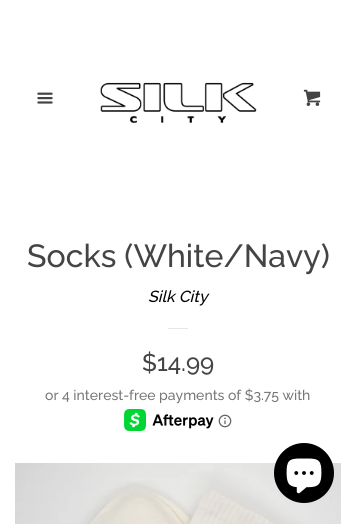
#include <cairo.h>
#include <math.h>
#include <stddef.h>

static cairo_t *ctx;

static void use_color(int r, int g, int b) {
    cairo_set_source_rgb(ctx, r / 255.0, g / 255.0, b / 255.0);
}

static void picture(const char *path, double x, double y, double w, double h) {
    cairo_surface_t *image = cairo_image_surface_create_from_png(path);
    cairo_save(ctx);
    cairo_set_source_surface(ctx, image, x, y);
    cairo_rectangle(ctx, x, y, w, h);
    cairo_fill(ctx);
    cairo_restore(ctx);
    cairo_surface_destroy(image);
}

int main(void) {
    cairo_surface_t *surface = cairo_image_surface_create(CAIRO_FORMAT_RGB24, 356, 524);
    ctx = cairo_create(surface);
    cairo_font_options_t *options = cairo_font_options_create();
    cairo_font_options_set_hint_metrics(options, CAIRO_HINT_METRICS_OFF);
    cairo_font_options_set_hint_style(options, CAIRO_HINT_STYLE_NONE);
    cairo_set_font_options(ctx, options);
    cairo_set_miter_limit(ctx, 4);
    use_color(255, 255, 255);
    cairo_paint(ctx);
    picture("img1.png", 37, 92, 16, 12);
    picture("img2.png", 100, 82, 157, 41);
    picture("img3.png", 303, 89, 18, 17);
    cairo_select_font_face(ctx, "Raleway Medium", CAIRO_FONT_SLANT_NORMAL, CAIRO_FONT_WEIGHT_NORMAL);
    cairo_set_font_size(ctx, 32);
    use_color(68, 68, 68);
    cairo_move_to(ctx, 27, 267);
    cairo_show_text(ctx, "Socks (White/Navy)");
    cairo_select_font_face(ctx, "Raleway Medium", CAIRO_FONT_SLANT_ITALIC, CAIRO_FONT_WEIGHT_NORMAL);
    cairo_set_font_size(ctx, 16);
    use_color(0, 0, 0);
    cairo_move_to(ctx, 148, 302);
    cairo_show_text(ctx, "Silk City");
    use_color(231, 231, 231);
    cairo_rectangle(ctx, 168, 328, 20, 1);
    cairo_fill(ctx);
    cairo_select_font_face(ctx, "Raleway Medium", CAIRO_FONT_SLANT_NORMAL, CAIRO_FONT_WEIGHT_NORMAL);
    cairo_set_font_size(ctx, 24);
    use_color(68, 68, 68);
    cairo_move_to(ctx, 142, 371);
    cairo_show_text(ctx, "$14.99");
    cairo_set_font_size(ctx, 14);
    use_color(119, 119, 119);
    cairo_move_to(ctx, 45, 400);
    cairo_show_text(ctx, "or 4 interest-free payments of $3.75 with");
    picture("img4.png", 124, 409, 90, 22);
    picture("img5.png", 218, 414, 14, 14);
    picture("img6.png", 15, 463, 326, 61);
    use_color(0, 0, 0);
    cairo_arc(ctx, 304, 473, 30, 0, 2 * M_PI);
    cairo_fill(ctx);
    picture("img7.png", 286, 458, 36, 36);
    cairo_surface_write_to_png(surface, "result.png");
    cairo_font_options_destroy(options);
    cairo_destroy(ctx);
    cairo_surface_destroy(surface);
    return 0;
}
